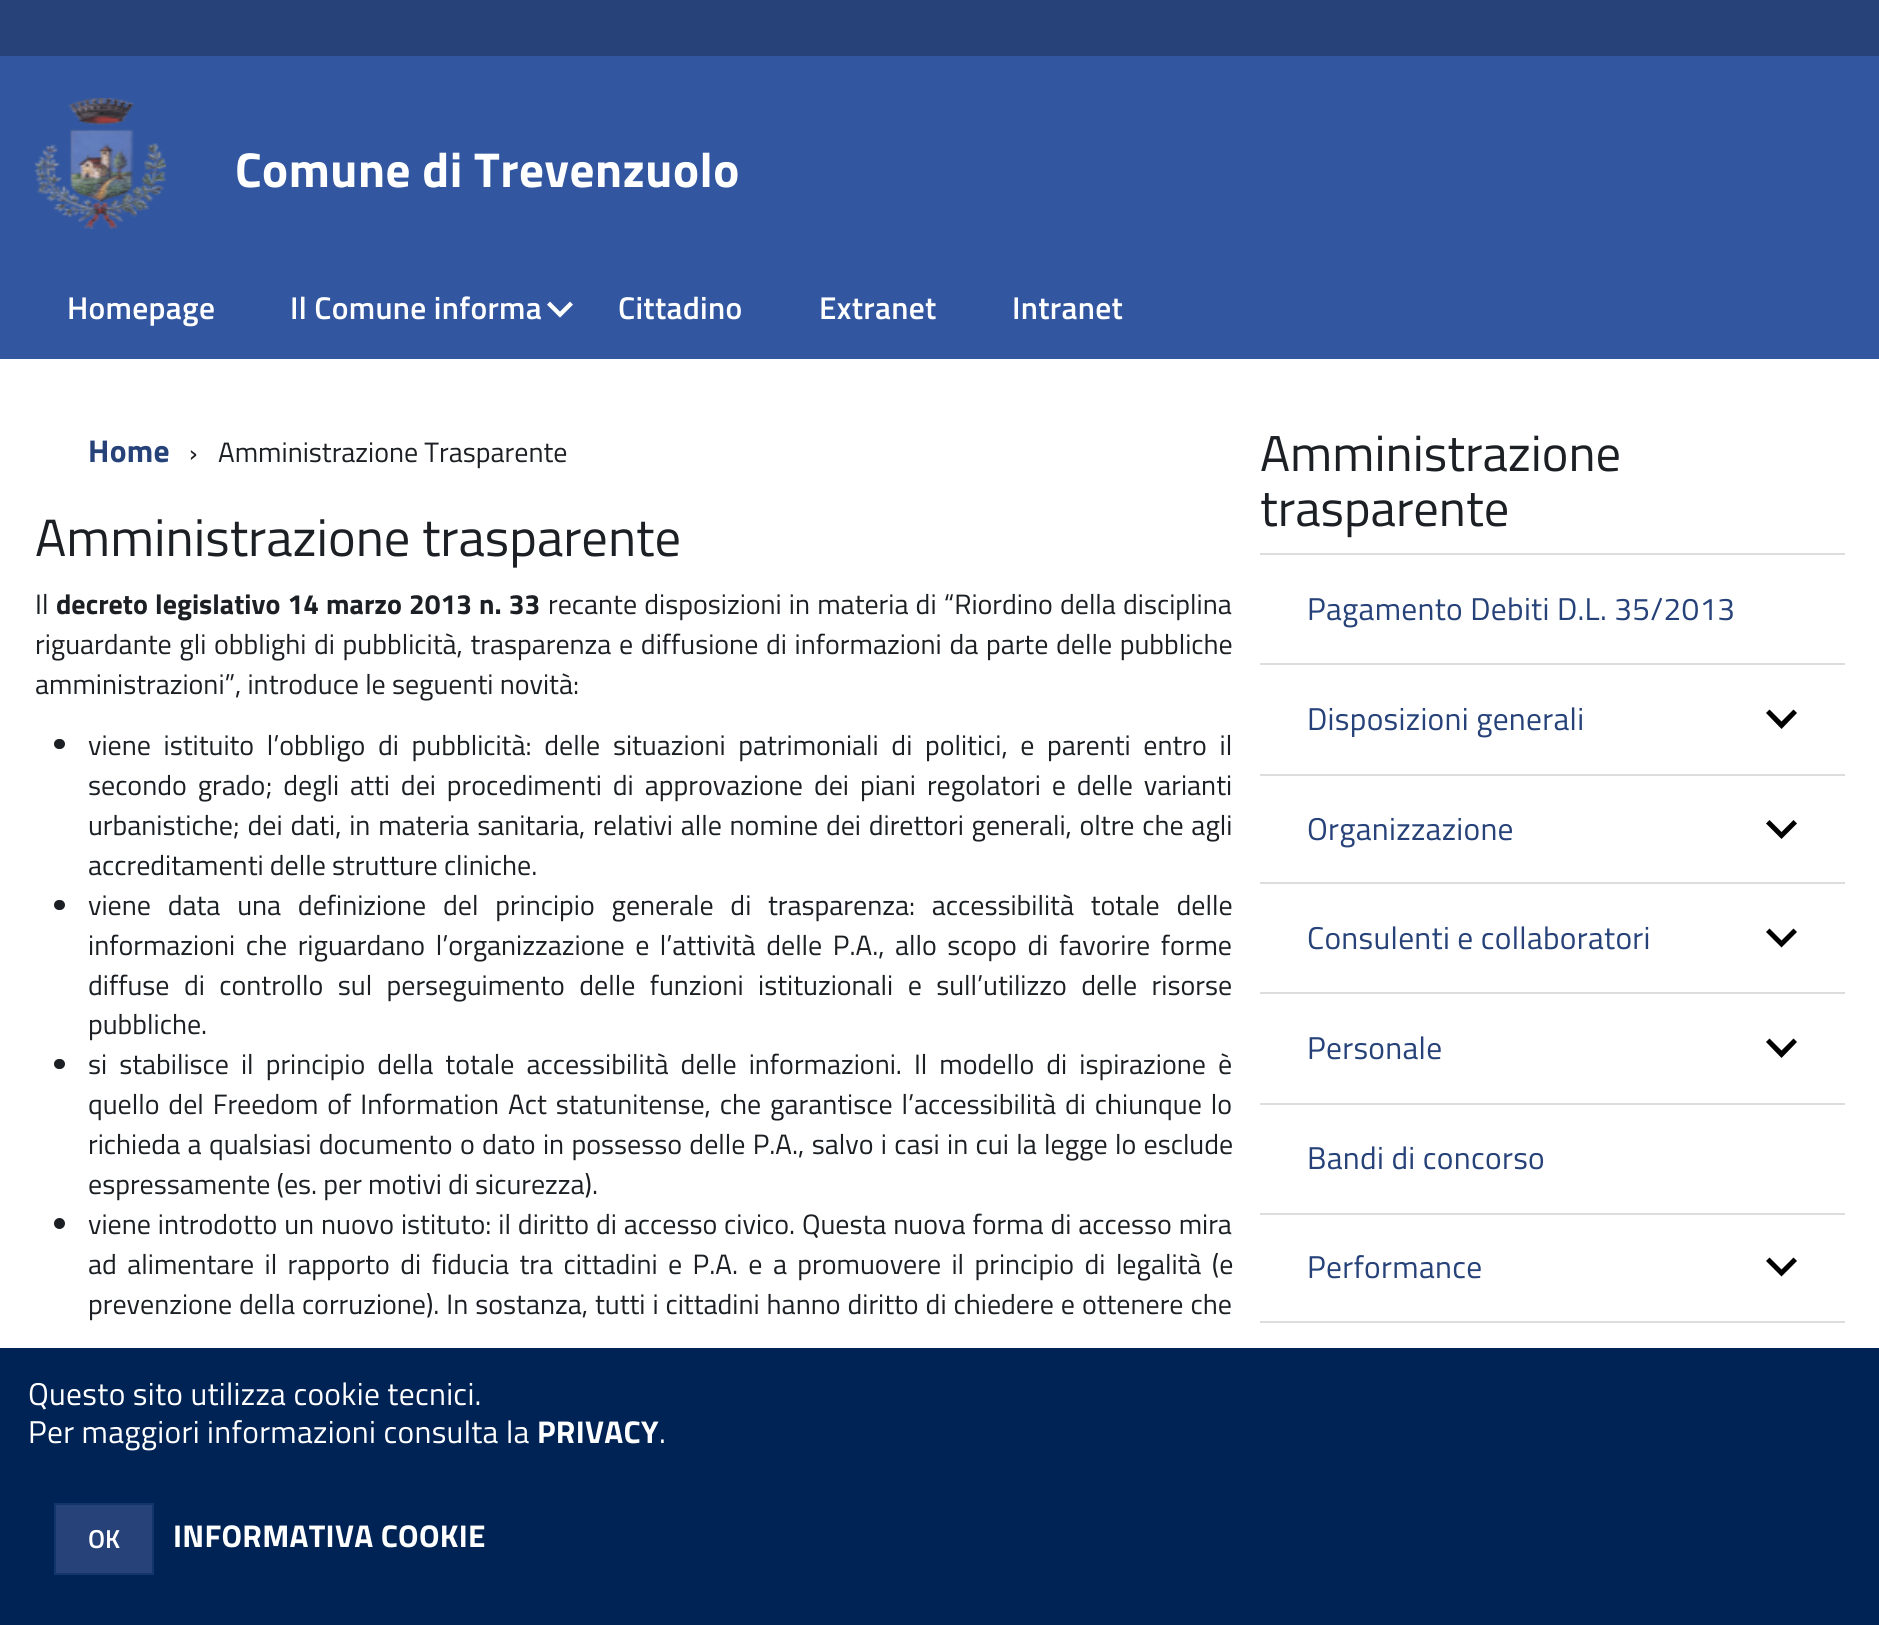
#include <cairo.h>
#include <math.h>
#include <stddef.h>

static cairo_t *ctx;

static void use_color(int r, int g, int b) {
    cairo_set_source_rgb(ctx, r / 255.0, g / 255.0, b / 255.0);
}

static void spaced_text(double x, double y, const char *s, double letter, double word) {
    cairo_move_to(ctx, x, y);
    while (*s) {
        char ch[5] = {0};
        int n = 0;
        do ch[n++] = *s++; while ((*s & 0xC0) == 0x80);
        cairo_show_text(ctx, ch);
        cairo_rel_move_to(ctx, letter + word * (*ch == ' '), 0);
    }
}

static void round_rect(double x, double y, double w, double h, double r) {
    cairo_new_sub_path(ctx);
    cairo_arc(ctx, x + w - r, y + h - r, r, 0, M_PI / 2);
    cairo_arc(ctx, x + r, y + h - r, r, M_PI / 2, M_PI);
    cairo_arc(ctx, x + r, y + r, r, M_PI, 1.5 * M_PI);
    cairo_arc(ctx, x + w - r, y + r, r, 1.5 * M_PI, 2 * M_PI);
    cairo_close_path(ctx);
}

static void picture(const char *path, double x, double y, double w, double h) {
    cairo_surface_t *image = cairo_image_surface_create_from_png(path);
    cairo_save(ctx);
    cairo_set_source_surface(ctx, image, x, y);
    cairo_rectangle(ctx, x, y, w, h);
    cairo_fill(ctx);
    cairo_restore(ctx);
    cairo_surface_destroy(image);
}

int main(void) {
    cairo_surface_t *surface = cairo_image_surface_create(CAIRO_FORMAT_RGB24, 1879, 1625);
    ctx = cairo_create(surface);
    cairo_font_options_t *options = cairo_font_options_create();
    cairo_font_options_set_hint_metrics(options, CAIRO_HINT_METRICS_OFF);
    cairo_font_options_set_hint_style(options, CAIRO_HINT_STYLE_NONE);
    cairo_set_font_options(ctx, options);
    cairo_set_miter_limit(ctx, 4);
    use_color(255, 255, 255);
    cairo_paint(ctx);
    use_color(38, 66, 121);
    cairo_rectangle(ctx, 0, 0, 1879, 56);
    cairo_fill(ctx);
    use_color(50, 87, 160);
    cairo_rectangle(ctx, 0, 56, 1879, 303);
    cairo_fill(ctx);
    picture("img1.png", 35, 98, 131, 131);
    cairo_select_font_face(ctx, "Titillium Web", CAIRO_FONT_SLANT_NORMAL, CAIRO_FONT_WEIGHT_BOLD);
    cairo_set_font_size(ctx, 49);
    use_color(255, 255, 255);
    spaced_text(235, 187, "Comune di Trevenzuolo", 0.5, 0);
    cairo_select_font_face(ctx, "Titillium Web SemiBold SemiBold", CAIRO_FONT_SLANT_NORMAL, CAIRO_FONT_WEIGHT_NORMAL);
    cairo_set_font_size(ctx, 31.5);
    spaced_text(67, 319, "Homepage", 0.3, 0);
    spaced_text(290, 319, "Il Comune informa", 0.3, 0);
    cairo_select_font_face(ctx, "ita", CAIRO_FONT_SLANT_NORMAL, CAIRO_FONT_WEIGHT_NORMAL);
    cairo_set_font_size(ctx, 26);
    spaced_text(547, 321, "⏶", 0.3, 0);
    cairo_select_font_face(ctx, "Titillium Web SemiBold SemiBold", CAIRO_FONT_SLANT_NORMAL, CAIRO_FONT_WEIGHT_NORMAL);
    cairo_set_font_size(ctx, 31.5);
    spaced_text(618, 319, "Cittadino", 0.3, 0);
    spaced_text(819, 319, "Extranet", 0.3, 0);
    spaced_text(1012, 319, "Intranet", 0.3, 0);
    cairo_select_font_face(ctx, "Titillium Web", CAIRO_FONT_SLANT_NORMAL, CAIRO_FONT_WEIGHT_BOLD);
    use_color(38, 66, 121);
    spaced_text(88, 462, "Home", 0.3, 0);
    cairo_select_font_face(ctx, "Titillium Web", CAIRO_FONT_SLANT_NORMAL, CAIRO_FONT_WEIGHT_NORMAL);
    cairo_set_font_size(ctx, 28);
    use_color(28, 32, 36);
    cairo_move_to(ctx, 189, 462);
    cairo_show_text(ctx, "›");
    cairo_move_to(ctx, 218, 462);
    cairo_show_text(ctx, "Amministrazione Trasparente");
    cairo_set_font_size(ctx, 52.5);
    cairo_move_to(ctx, 35, 556);
    cairo_show_text(ctx, "Amministrazione trasparente");
    cairo_set_font_size(ctx, 28);
    cairo_move_to(ctx, 35, 614);
    cairo_show_text(ctx, "Il");
    cairo_select_font_face(ctx, "Titillium Web", CAIRO_FONT_SLANT_NORMAL, CAIRO_FONT_WEIGHT_BOLD);
    spaced_text(56, 614, "decreto legislativo 14 marzo 2013 n. 33", 0, 1);
    cairo_select_font_face(ctx, "Titillium Web", CAIRO_FONT_SLANT_NORMAL, CAIRO_FONT_WEIGHT_NORMAL);
    spaced_text(548, 614, "recante disposizioni in materia di “Riordino della disciplina", 0, 1);
    spaced_text(35, 654, "riguardante gli obblighi di pubblicità, trasparenza e diffusione di informazioni da parte delle pubbliche", 0, 1.5);
    cairo_move_to(ctx, 35, 694);
    cairo_show_text(ctx, "amministrazioni”, introduce le seguenti novità:");
    round_rect(54, 739, 11, 10, 5);
    cairo_fill(ctx);
    spaced_text(88, 755, "viene istituito l’obbligo di pubblicità: delle situazioni patrimoniali di politici, e parenti entro il", 0, 6.5);
    spaced_text(88, 795, "secondo grado; degli atti dei procedimenti di approvazione dei piani regolatori e delle varianti", 0, 4.75);
    spaced_text(88, 835, "urbanistiche; dei dati, in materia sanitaria, relativi alle nomine dei direttori generali, oltre che agli", 0, 1.6);
    cairo_move_to(ctx, 88, 875);
    cairo_show_text(ctx, "accreditamenti delle strutture cliniche.");
    round_rect(54, 900, 11, 10, 5);
    cairo_fill(ctx);
    spaced_text(88, 915, "viene data una definizione del principio generale di trasparenza: accessibilità totale delle", 0, 10.6);
    spaced_text(88, 955, "informazioni che riguardano l’organizzazione e l’attività delle P.A., allo scopo di favorire forme", 0, 4.4);
    spaced_text(88, 995, "diffuse di controllo sul perseguimento delle funzioni istituzionali e sull’utilizzo delle risorse", 0, 8.25);
    cairo_move_to(ctx, 88, 1034);
    cairo_show_text(ctx, "pubbliche.");
    round_rect(54, 1059, 11, 10, 5);
    cairo_fill(ctx);
    spaced_text(88, 1074, "si stabilisce il principio della totale accessibilità delle informazioni. Il modello di ispirazione è", 0, 5.9);
    spaced_text(88, 1114, "quello del Freedom of Information Act statunitense, che garantisce l’accessibilità di chiunque lo", 0, 2.75);
    spaced_text(88, 1154, "richieda a qualsiasi documento o dato in possesso delle P.A., salvo i casi in cui la legge lo esclude", 0, 1.2);
    cairo_move_to(ctx, 88, 1194);
    cairo_show_text(ctx, "espressamente (es. per motivi di sicurezza).");
    cairo_new_path(ctx);
    cairo_arc(ctx, 59.5, 1223.5, 5.5, 0, 2 * M_PI);
    cairo_fill(ctx);
    spaced_text(88, 1234, "viene introdotto un nuovo istituto: il diritto di accesso civico. Questa nuova forma di accesso mira", 0, 0.75);
    spaced_text(88, 1274, "ad alimentare il rapporto di fiducia tra cittadini e P.A. e a promuovere il principio di legalità (e", 0, 4.25);
    spaced_text(88, 1314, "prevenzione della corruzione). In sostanza, tutti i cittadini hanno diritto di chiedere e ottenere che", 0, 0.8);
    cairo_set_font_size(ctx, 50.5);
    cairo_move_to(ctx, 1260, 471);
    cairo_show_text(ctx, "Amministrazione");
    cairo_move_to(ctx, 1260, 526);
    cairo_show_text(ctx, "trasparente");
    use_color(221, 221, 221);
    cairo_rectangle(ctx, 1260, 553, 585, 2);
    cairo_fill(ctx);
    cairo_set_font_size(ctx, 31.5);
    use_color(38, 66, 121);
    spaced_text(1307, 620, "Pagamento Debiti D.L. 35/2013", 0.3, 0);
    use_color(221, 221, 221);
    cairo_rectangle(ctx, 1260, 663, 585, 2);
    cairo_fill(ctx);
    use_color(38, 66, 121);
    spaced_text(1307, 730, "Disposizioni generali", 0.3, 0);
    use_color(0, 0, 0);
    cairo_new_path(ctx);
    cairo_move_to(ctx, 1769.5, 709.5);
    cairo_line_to(ctx, 1766, 713);
    cairo_line_to(ctx, 1781.5, 729);
    cairo_line_to(ctx, 1797, 713);
    cairo_line_to(ctx, 1793.5, 709.5);
    cairo_line_to(ctx, 1781.5, 721.5);
    cairo_close_path(ctx);
    cairo_fill(ctx);
    use_color(221, 221, 221);
    cairo_rectangle(ctx, 1260, 774, 585, 2);
    cairo_fill(ctx);
    use_color(38, 66, 121);
    spaced_text(1307, 840, "Organizzazione", 0.3, 0);
    use_color(0, 0, 0);
    cairo_new_path(ctx);
    cairo_move_to(ctx, 1769.5, 820);
    cairo_line_to(ctx, 1766, 823.5);
    cairo_line_to(ctx, 1781.5, 839);
    cairo_line_to(ctx, 1797, 823.5);
    cairo_line_to(ctx, 1793.5, 820);
    cairo_line_to(ctx, 1781.5, 832);
    cairo_close_path(ctx);
    cairo_fill(ctx);
    use_color(221, 221, 221);
    cairo_rectangle(ctx, 1260, 882, 585, 2);
    cairo_fill(ctx);
    use_color(38, 66, 121);
    spaced_text(1307, 949, "Consulenti e collaboratori", 0.3, 0);
    use_color(0, 0, 0);
    cairo_new_path(ctx);
    cairo_move_to(ctx, 1769.5, 928.5);
    cairo_line_to(ctx, 1766, 932);
    cairo_line_to(ctx, 1781.5, 947.5);
    cairo_line_to(ctx, 1797, 932);
    cairo_line_to(ctx, 1793.5, 928.5);
    cairo_line_to(ctx, 1781.5, 940.5);
    cairo_close_path(ctx);
    cairo_fill(ctx);
    use_color(221, 221, 221);
    cairo_rectangle(ctx, 1260, 992, 585, 2);
    cairo_fill(ctx);
    use_color(38, 66, 121);
    spaced_text(1307, 1059, "Personale", 0.3, 0);
    use_color(0, 0, 0);
    cairo_new_path(ctx);
    cairo_move_to(ctx, 1769.5, 1038.5);
    cairo_line_to(ctx, 1766, 1042);
    cairo_line_to(ctx, 1781.5, 1058);
    cairo_line_to(ctx, 1797, 1042);
    cairo_line_to(ctx, 1793.5, 1038.5);
    cairo_line_to(ctx, 1781.5, 1050.5);
    cairo_close_path(ctx);
    cairo_fill(ctx);
    use_color(221, 221, 221);
    cairo_rectangle(ctx, 1260, 1103, 585, 2);
    cairo_fill(ctx);
    use_color(38, 66, 121);
    spaced_text(1307, 1169, "Bandi di concorso", 0.3, 0);
    use_color(221, 221, 221);
    cairo_rectangle(ctx, 1260, 1213, 585, 2);
    cairo_fill(ctx);
    use_color(38, 66, 121);
    spaced_text(1307, 1278, "Performance", 0.3, 0);
    use_color(0, 0, 0);
    cairo_new_path(ctx);
    cairo_move_to(ctx, 1769.5, 1257.5);
    cairo_line_to(ctx, 1766, 1261);
    cairo_line_to(ctx, 1781.5, 1276.5);
    cairo_line_to(ctx, 1797, 1261);
    cairo_line_to(ctx, 1793.5, 1257.5);
    cairo_line_to(ctx, 1781.5, 1269.5);
    cairo_close_path(ctx);
    cairo_fill(ctx);
    use_color(221, 221, 221);
    cairo_rectangle(ctx, 1260, 1321, 585, 2);
    cairo_fill(ctx);
    use_color(0, 35, 85);
    cairo_rectangle(ctx, 0, 1348, 1879, 277);
    cairo_fill(ctx);
    use_color(255, 255, 255);
    spaced_text(28, 1405, "Questo sito utilizza cookie tecnici.", 0.3, 0);
    spaced_text(28, 1443, "Per maggiori informazioni consulta la", 0.3, 0);
    cairo_select_font_face(ctx, "Titillium Web", CAIRO_FONT_SLANT_NORMAL, CAIRO_FONT_WEIGHT_BOLD);
    spaced_text(537, 1443, "PRIVACY", 0.3, 0);
    cairo_select_font_face(ctx, "Titillium Web", CAIRO_FONT_SLANT_NORMAL, CAIRO_FONT_WEIGHT_NORMAL);
    spaced_text(659, 1443, ".", 0.3, 0);
    use_color(38, 66, 121);
    cairo_rectangle(ctx, 55, 1504, 98, 70);
    cairo_fill_preserve(ctx);
    use_color(19, 53, 107);
    cairo_stroke(ctx);
    cairo_select_font_face(ctx, "Titillium Web SemiBold SemiBold", CAIRO_FONT_SLANT_NORMAL, CAIRO_FONT_WEIGHT_NORMAL);
    cairo_set_font_size(ctx, 26);
    use_color(255, 255, 255);
    cairo_move_to(ctx, 88, 1548);
    cairo_show_text(ctx, "OK");
    cairo_select_font_face(ctx, "Titillium Web", CAIRO_FONT_SLANT_NORMAL, CAIRO_FONT_WEIGHT_BOLD);
    cairo_set_font_size(ctx, 31.5);
    spaced_text(173, 1547, "INFORMATIVA COOKIE", 0.3, 0);
    cairo_surface_write_to_png(surface, "result.png");
    cairo_font_options_destroy(options);
    cairo_destroy(ctx);
    cairo_surface_destroy(surface);
    return 0;
}
